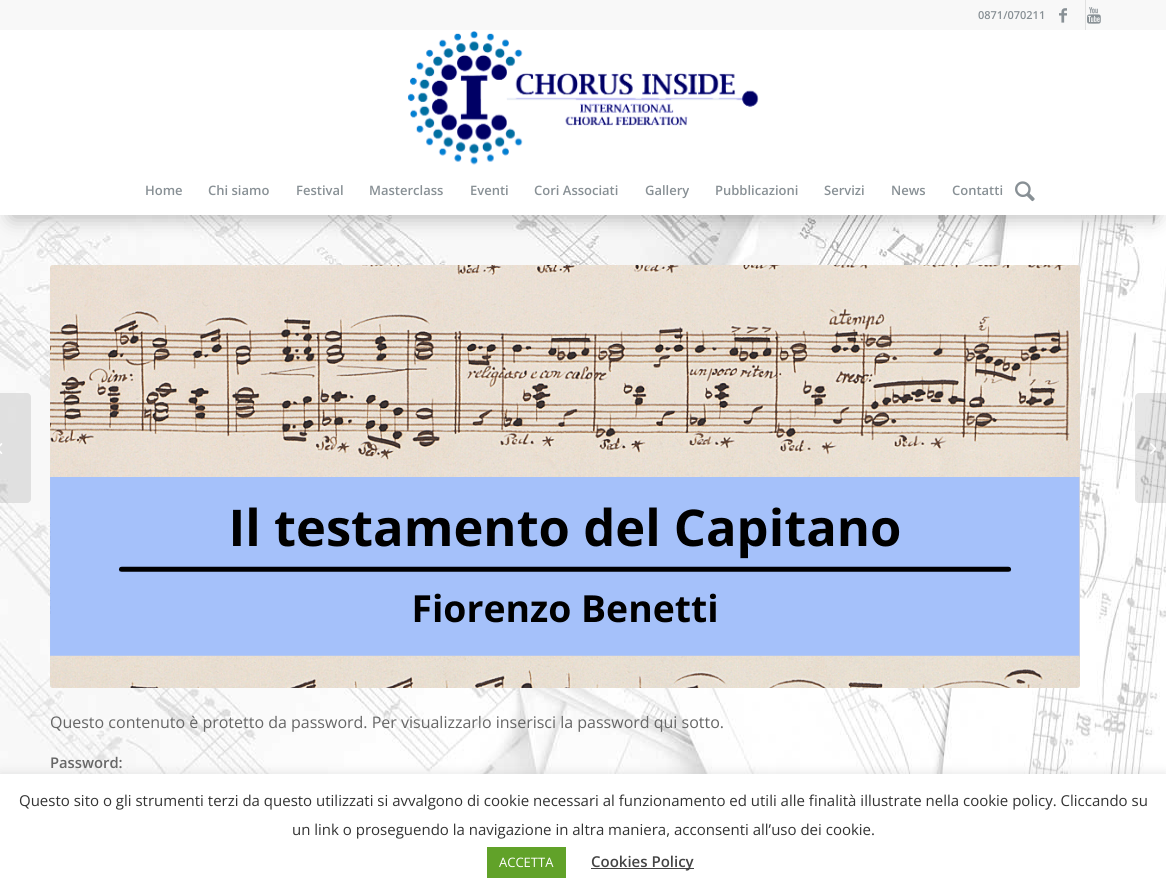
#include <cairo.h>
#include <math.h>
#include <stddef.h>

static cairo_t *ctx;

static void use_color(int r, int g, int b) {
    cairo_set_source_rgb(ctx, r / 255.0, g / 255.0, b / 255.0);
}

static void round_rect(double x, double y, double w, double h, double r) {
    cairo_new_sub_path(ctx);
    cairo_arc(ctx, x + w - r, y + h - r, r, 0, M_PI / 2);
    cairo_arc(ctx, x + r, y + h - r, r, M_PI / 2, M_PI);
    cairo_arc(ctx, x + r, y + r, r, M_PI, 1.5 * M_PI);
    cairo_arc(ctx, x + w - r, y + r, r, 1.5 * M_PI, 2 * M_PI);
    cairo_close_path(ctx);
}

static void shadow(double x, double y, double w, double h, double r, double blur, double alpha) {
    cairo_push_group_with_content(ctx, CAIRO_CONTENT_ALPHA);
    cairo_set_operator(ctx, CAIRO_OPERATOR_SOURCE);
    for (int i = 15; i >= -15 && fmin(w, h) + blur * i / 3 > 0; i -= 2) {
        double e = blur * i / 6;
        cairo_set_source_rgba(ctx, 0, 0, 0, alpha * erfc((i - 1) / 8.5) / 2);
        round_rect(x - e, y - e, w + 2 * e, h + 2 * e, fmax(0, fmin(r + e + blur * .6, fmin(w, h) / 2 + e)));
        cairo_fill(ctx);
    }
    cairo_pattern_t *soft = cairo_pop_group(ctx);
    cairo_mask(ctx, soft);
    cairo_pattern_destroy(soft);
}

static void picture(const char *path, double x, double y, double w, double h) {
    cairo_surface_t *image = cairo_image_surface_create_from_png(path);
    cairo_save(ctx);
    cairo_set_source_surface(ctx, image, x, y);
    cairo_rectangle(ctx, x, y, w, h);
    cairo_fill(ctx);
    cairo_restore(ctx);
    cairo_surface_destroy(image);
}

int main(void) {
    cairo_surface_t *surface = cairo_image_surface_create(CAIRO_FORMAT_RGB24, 1166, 895);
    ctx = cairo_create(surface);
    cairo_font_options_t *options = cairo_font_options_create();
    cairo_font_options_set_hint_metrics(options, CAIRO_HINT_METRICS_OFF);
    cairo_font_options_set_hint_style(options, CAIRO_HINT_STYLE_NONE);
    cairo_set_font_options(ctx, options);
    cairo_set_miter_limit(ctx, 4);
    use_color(255, 255, 255);
    cairo_paint(ctx);
    picture("img7.png", 0, 215, 1166, 559);
    use_color(0, 0, 0);
    shadow(12, 24, 1144, 193, 0, 10.5, 0.29);
    use_color(248, 248, 248);
    cairo_rectangle(ctx, 0, 0, 1166, 30);
    cairo_fill(ctx);
    cairo_select_font_face(ctx, "Open Sans SemiBold", CAIRO_FONT_SLANT_NORMAL, CAIRO_FONT_WEIGHT_NORMAL);
    cairo_set_font_size(ctx, 11);
    use_color(136, 144, 149);
    cairo_move_to(ctx, 978, 19);
    cairo_show_text(ctx, "0871/070211");
    use_color(225, 225, 225);
    cairo_rectangle(ctx, 1085, 0, 1, 30);
    cairo_fill(ctx);
    picture("img1.png", 1059, 8, 8, 15);
    picture("img2.png", 1087, 7, 14, 17);
    use_color(255, 255, 255);
    cairo_rectangle(ctx, 0, 30, 1166, 185);
    cairo_fill(ctx);
    picture("img3.png", 407, 31, 352, 134);
    cairo_set_font_size(ctx, 13);
    use_color(136, 144, 149);
    cairo_move_to(ctx, 145, 195);
    cairo_show_text(ctx, "Home");
    cairo_move_to(ctx, 208, 195);
    cairo_show_text(ctx, "Chi siamo");
    cairo_move_to(ctx, 296, 195);
    cairo_show_text(ctx, "Festival");
    cairo_move_to(ctx, 369, 195);
    cairo_show_text(ctx, "Masterclass");
    cairo_move_to(ctx, 470, 195);
    cairo_show_text(ctx, "Eventi");
    cairo_move_to(ctx, 534, 195);
    cairo_show_text(ctx, "Cori Associati");
    cairo_move_to(ctx, 645, 195);
    cairo_show_text(ctx, "Gallery");
    cairo_move_to(ctx, 715, 195);
    cairo_show_text(ctx, "Pubblicazioni");
    cairo_move_to(ctx, 824, 195);
    cairo_show_text(ctx, "Servizi");
    cairo_move_to(ctx, 891, 195);
    cairo_show_text(ctx, "News");
    cairo_move_to(ctx, 952, 195);
    cairo_show_text(ctx, "Contatti");
    picture("img4.png", 1015, 181, 20, 21);
    cairo_set_source_rgba(ctx, 0, 0, 0, 0.1);
    cairo_new_path(ctx);
    cairo_move_to(ctx, 0, 393);
    cairo_line_to(ctx, 27, 393);
    cairo_curve_to(ctx, 29, 393, 31, 395, 31, 397);
    cairo_line_to(ctx, 31, 499);
    cairo_curve_to(ctx, 31, 501, 29, 503, 27, 503);
    cairo_line_to(ctx, 0, 503);
    cairo_close_path(ctx);
    cairo_fill(ctx);
    picture("img5.png", 0, 443, 3, 11);
    cairo_new_path(ctx);
    cairo_move_to(ctx, 1139, 393);
    cairo_line_to(ctx, 1166, 393);
    cairo_line_to(ctx, 1166, 503);
    cairo_line_to(ctx, 1139, 503);
    cairo_curve_to(ctx, 1137, 503, 1135, 501, 1135, 499);
    cairo_line_to(ctx, 1135, 397);
    cairo_curve_to(ctx, 1135, 395, 1137, 393, 1139, 393);
    cairo_close_path(ctx);
    cairo_fill(ctx);
    picture("img6.png", 1150, 443, 7, 11);
    picture("img8.png", 50, 265, 1030, 423);
    cairo_select_font_face(ctx, "Open Sans", CAIRO_FONT_SLANT_NORMAL, CAIRO_FONT_WEIGHT_NORMAL);
    cairo_set_font_size(ctx, 16);
    use_color(102, 102, 102);
    cairo_move_to(ctx, 50, 728);
    cairo_show_text(ctx, "Questo contenuto è protetto da password. Per visualizzarlo inserisci la password qui sotto.");
    cairo_select_font_face(ctx, "Open Sans SemiBold", CAIRO_FONT_SLANT_NORMAL, CAIRO_FONT_WEIGHT_NORMAL);
    cairo_set_font_size(ctx, 14.75);
    cairo_move_to(ctx, 50, 768);
    cairo_show_text(ctx, "Password:");
    use_color(172, 171, 171);
    shadow(0, 773, 1166, 121, 0, 5, 0.3);
    use_color(255, 255, 255);
    cairo_rectangle(ctx, 0, 774, 1166, 121);
    cairo_fill(ctx);
    cairo_select_font_face(ctx, "Open Sans", CAIRO_FONT_SLANT_NORMAL, CAIRO_FONT_WEIGHT_NORMAL);
    cairo_set_font_size(ctx, 15);
    use_color(51, 51, 51);
    cairo_move_to(ctx, 19, 806);
    cairo_show_text(ctx, "Questo sito o gli strumenti terzi da questo utilizzati si avvalgono di cookie necessari al funzionamento ed utili alle finalità illustrate nella cookie policy. Cliccando su");
    cairo_move_to(ctx, 292, 835);
    cairo_show_text(ctx, "un link o proseguendo la navigazione in altra maniera, acconsenti all’uso dei cookie.");
    use_color(97, 162, 41);
    cairo_rectangle(ctx, 487, 847, 79, 31);
    cairo_fill(ctx);
    cairo_set_font_size(ctx, 13);
    use_color(255, 255, 255);
    cairo_move_to(ctx, 499, 867);
    cairo_show_text(ctx, "ACCETTA");
    use_color(68, 68, 68);
    cairo_rectangle(ctx, 591, 868, 103, 1);
    cairo_fill(ctx);
    cairo_select_font_face(ctx, "Open Sans SemiBold", CAIRO_FONT_SLANT_NORMAL, CAIRO_FONT_WEIGHT_NORMAL);
    cairo_set_font_size(ctx, 15);
    cairo_move_to(ctx, 591, 867);
    cairo_show_text(ctx, "Cookies Policy");
    cairo_surface_write_to_png(surface, "result.png");
    cairo_font_options_destroy(options);
    cairo_destroy(ctx);
    cairo_surface_destroy(surface);
    return 0;
}
